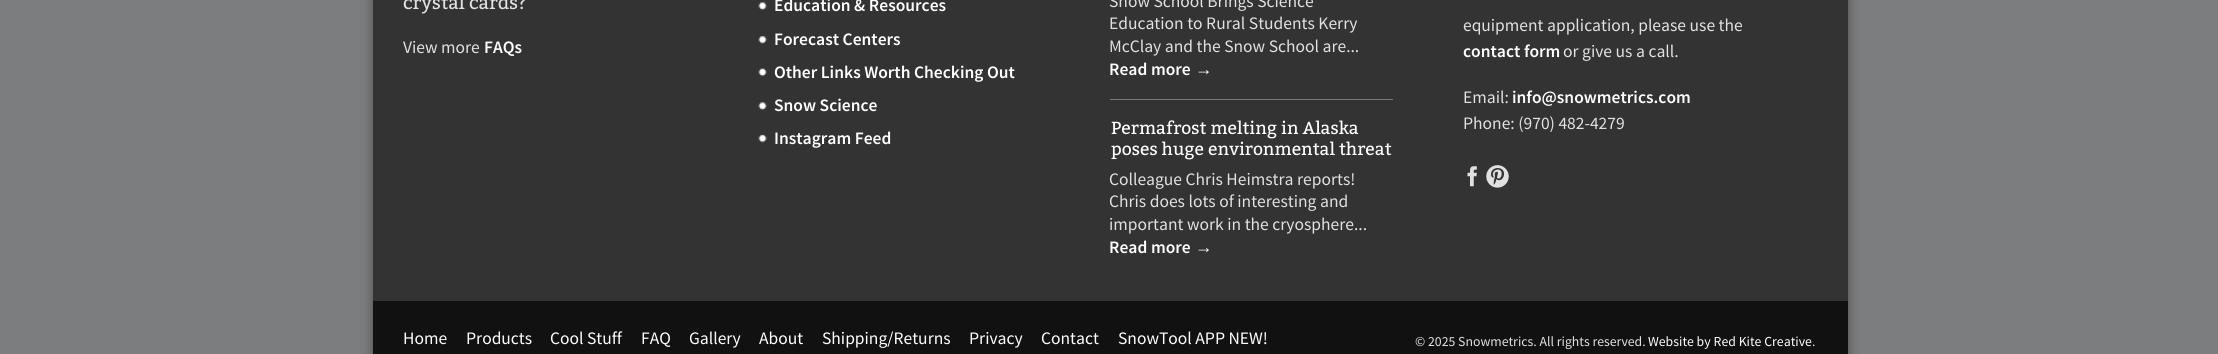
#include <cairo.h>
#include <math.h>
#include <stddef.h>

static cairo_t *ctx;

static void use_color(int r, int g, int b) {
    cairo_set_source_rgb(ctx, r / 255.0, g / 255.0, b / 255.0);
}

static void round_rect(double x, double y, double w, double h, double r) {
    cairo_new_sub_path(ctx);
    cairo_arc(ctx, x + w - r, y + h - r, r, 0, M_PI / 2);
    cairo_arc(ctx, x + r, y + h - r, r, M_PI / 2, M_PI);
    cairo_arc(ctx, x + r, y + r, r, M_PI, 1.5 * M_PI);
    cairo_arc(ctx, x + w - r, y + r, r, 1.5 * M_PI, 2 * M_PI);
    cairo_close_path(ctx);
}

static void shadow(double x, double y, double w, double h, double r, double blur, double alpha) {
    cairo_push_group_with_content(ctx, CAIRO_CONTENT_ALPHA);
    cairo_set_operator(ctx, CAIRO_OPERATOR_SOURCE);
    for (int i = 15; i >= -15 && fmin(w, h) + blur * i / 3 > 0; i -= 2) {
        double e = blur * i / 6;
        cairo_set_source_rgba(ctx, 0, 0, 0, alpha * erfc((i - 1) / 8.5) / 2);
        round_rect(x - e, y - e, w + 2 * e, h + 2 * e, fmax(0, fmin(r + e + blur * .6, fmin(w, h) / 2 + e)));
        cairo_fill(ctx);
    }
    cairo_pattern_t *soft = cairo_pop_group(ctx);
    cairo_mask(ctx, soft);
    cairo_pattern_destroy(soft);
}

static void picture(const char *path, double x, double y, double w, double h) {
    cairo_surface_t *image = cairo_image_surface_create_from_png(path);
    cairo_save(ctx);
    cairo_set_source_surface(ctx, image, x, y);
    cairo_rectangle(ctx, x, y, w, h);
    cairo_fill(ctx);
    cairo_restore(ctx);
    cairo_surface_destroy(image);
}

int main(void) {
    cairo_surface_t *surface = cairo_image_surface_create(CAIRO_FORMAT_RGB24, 2218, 354);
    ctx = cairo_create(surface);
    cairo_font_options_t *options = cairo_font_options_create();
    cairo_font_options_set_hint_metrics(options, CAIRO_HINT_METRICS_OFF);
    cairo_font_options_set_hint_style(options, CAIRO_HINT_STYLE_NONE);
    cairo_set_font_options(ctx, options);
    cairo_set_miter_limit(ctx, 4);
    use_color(124, 125, 127);
    cairo_paint(ctx);
    use_color(0, 0, 0);
    shadow(373, -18, 1475, 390, 0, 6, 0.4);
    use_color(51, 51, 51);
    cairo_rectangle(ctx, 373, 0, 1475, 301);
    cairo_fill(ctx);
    cairo_select_font_face(ctx, "Bitter", CAIRO_FONT_SLANT_NORMAL, CAIRO_FONT_WEIGHT_NORMAL);
    cairo_set_font_size(ctx, 18.75);
    use_color(225, 225, 225);
    cairo_move_to(ctx, 403, 9);
    cairo_show_text(ctx, "crystal cards?");
    cairo_select_font_face(ctx, "Source Sans Pro", CAIRO_FONT_SLANT_NORMAL, CAIRO_FONT_WEIGHT_NORMAL);
    cairo_set_font_size(ctx, 17.5);
    cairo_move_to(ctx, 403, 53);
    cairo_show_text(ctx, "View more");
    cairo_select_font_face(ctx, "Source Sans Pro SemiBold", CAIRO_FONT_SLANT_NORMAL, CAIRO_FONT_WEIGHT_NORMAL);
    use_color(255, 255, 255);
    cairo_move_to(ctx, 484, 53);
    cairo_show_text(ctx, "FAQs");
    picture("img1.png", 758, 2, 9, 9);
    cairo_move_to(ctx, 774, 11);
    cairo_show_text(ctx, "Education & Resources");
    picture("img2.png", 758, 36, 9, 8);
    cairo_move_to(ctx, 774, 45);
    cairo_show_text(ctx, "Forecast Centers");
    picture("img3.png", 758, 68, 9, 9);
    cairo_move_to(ctx, 774, 78);
    cairo_show_text(ctx, "Other Links Worth Checking Out");
    picture("img1.png", 758, 102, 9, 9);
    cairo_move_to(ctx, 774, 111);
    cairo_show_text(ctx, "Snow Science");
    picture("img4.png", 758, 134, 9, 9);
    cairo_move_to(ctx, 774, 144);
    cairo_show_text(ctx, "Instagram Feed");
    use_color(119, 119, 119);
    cairo_rectangle(ctx, 1110, 99, 283, 1);
    cairo_fill(ctx);
    cairo_select_font_face(ctx, "Source Sans Pro", CAIRO_FONT_SLANT_NORMAL, CAIRO_FONT_WEIGHT_NORMAL);
    use_color(225, 225, 225);
    cairo_move_to(ctx, 1109, 7);
    cairo_show_text(ctx, "Snow School Brings Science");
    cairo_move_to(ctx, 1109, 29);
    cairo_show_text(ctx, "Education to Rural Students Kerry");
    cairo_move_to(ctx, 1109, 52);
    cairo_show_text(ctx, "McClay and the Snow School are...");
    cairo_select_font_face(ctx, "Source Sans Pro SemiBold", CAIRO_FONT_SLANT_NORMAL, CAIRO_FONT_WEIGHT_NORMAL);
    use_color(255, 255, 255);
    cairo_move_to(ctx, 1109, 75);
    cairo_show_text(ctx, "Read more");
    cairo_select_font_face(ctx, "Liberation Sans", CAIRO_FONT_SLANT_NORMAL, CAIRO_FONT_WEIGHT_BOLD);
    cairo_move_to(ctx, 1195, 75);
    cairo_show_text(ctx, "→");
    cairo_select_font_face(ctx, "Bitter", CAIRO_FONT_SLANT_NORMAL, CAIRO_FONT_WEIGHT_NORMAL);
    cairo_move_to(ctx, 1111, 134);
    cairo_show_text(ctx, "Permafrost melting in Alaska");
    cairo_move_to(ctx, 1111, 155);
    cairo_show_text(ctx, "poses huge environmental threat");
    cairo_select_font_face(ctx, "Source Sans Pro", CAIRO_FONT_SLANT_NORMAL, CAIRO_FONT_WEIGHT_NORMAL);
    use_color(225, 225, 225);
    cairo_move_to(ctx, 1109, 185);
    cairo_show_text(ctx, "Colleague Chris Heimstra reports!");
    cairo_move_to(ctx, 1109, 207);
    cairo_show_text(ctx, "Chris does lots of interesting and");
    cairo_move_to(ctx, 1109, 230);
    cairo_show_text(ctx, "important work in the cryosphere...");
    cairo_select_font_face(ctx, "Source Sans Pro SemiBold", CAIRO_FONT_SLANT_NORMAL, CAIRO_FONT_WEIGHT_NORMAL);
    use_color(255, 255, 255);
    cairo_move_to(ctx, 1109, 253);
    cairo_show_text(ctx, "Read more");
    cairo_select_font_face(ctx, "Liberation Sans", CAIRO_FONT_SLANT_NORMAL, CAIRO_FONT_WEIGHT_BOLD);
    cairo_move_to(ctx, 1195, 253);
    cairo_show_text(ctx, "→");
    cairo_select_font_face(ctx, "Source Sans Pro", CAIRO_FONT_SLANT_NORMAL, CAIRO_FONT_WEIGHT_NORMAL);
    use_color(225, 225, 225);
    cairo_move_to(ctx, 1463, 31);
    cairo_show_text(ctx, "equipment application, please use the");
    cairo_select_font_face(ctx, "Source Sans Pro SemiBold", CAIRO_FONT_SLANT_NORMAL, CAIRO_FONT_WEIGHT_NORMAL);
    use_color(255, 255, 255);
    cairo_move_to(ctx, 1463, 57);
    cairo_show_text(ctx, "contact form");
    cairo_select_font_face(ctx, "Source Sans Pro", CAIRO_FONT_SLANT_NORMAL, CAIRO_FONT_WEIGHT_NORMAL);
    use_color(225, 225, 225);
    cairo_move_to(ctx, 1563, 57);
    cairo_show_text(ctx, "or give us a call.");
    cairo_move_to(ctx, 1463, 103);
    cairo_show_text(ctx, "Email:");
    cairo_select_font_face(ctx, "Source Sans Pro SemiBold", CAIRO_FONT_SLANT_NORMAL, CAIRO_FONT_WEIGHT_NORMAL);
    use_color(255, 255, 255);
    cairo_move_to(ctx, 1512, 103);
    cairo_show_text(ctx, "info@snowmetrics.com");
    cairo_select_font_face(ctx, "Source Sans Pro", CAIRO_FONT_SLANT_NORMAL, CAIRO_FONT_WEIGHT_NORMAL);
    use_color(225, 225, 225);
    cairo_move_to(ctx, 1463, 129);
    cairo_show_text(ctx, "Phone: (970) 482-4279");
    picture("img5.png", 1467, 166, 10, 21);
    picture("img6.png", 1486, 165, 23, 23);
    use_color(17, 17, 17);
    cairo_rectangle(ctx, 373, 301, 1475, 53);
    cairo_fill(ctx);
    use_color(255, 255, 255);
    cairo_move_to(ctx, 403, 344);
    cairo_show_text(ctx, "Home");
    cairo_move_to(ctx, 466, 344);
    cairo_show_text(ctx, "Products");
    cairo_move_to(ctx, 550, 344);
    cairo_show_text(ctx, "Cool Stuff");
    cairo_move_to(ctx, 641, 344);
    cairo_show_text(ctx, "FAQ");
    cairo_move_to(ctx, 689, 344);
    cairo_show_text(ctx, "Gallery");
    cairo_move_to(ctx, 759, 344);
    cairo_show_text(ctx, "About");
    cairo_move_to(ctx, 822, 344);
    cairo_show_text(ctx, "Shipping/Returns");
    cairo_move_to(ctx, 969, 344);
    cairo_show_text(ctx, "Privacy");
    cairo_move_to(ctx, 1041, 344);
    cairo_show_text(ctx, "Contact");
    cairo_move_to(ctx, 1118, 344);
    cairo_show_text(ctx, "SnowTool APP NEW!");
    cairo_set_font_size(ctx, 13.75);
    use_color(225, 225, 225);
    cairo_move_to(ctx, 1415, 346);
    cairo_show_text(ctx, "© 2025 Snowmetrics. All rights reserved.");
    use_color(255, 255, 255);
    cairo_move_to(ctx, 1648, 346);
    cairo_show_text(ctx, "Website by Red Kite Creative");
    use_color(225, 225, 225);
    cairo_move_to(ctx, 1812, 346);
    cairo_show_text(ctx, ".");
    cairo_surface_write_to_png(surface, "result.png");
    cairo_font_options_destroy(options);
    cairo_destroy(ctx);
    cairo_surface_destroy(surface);
    return 0;
}
